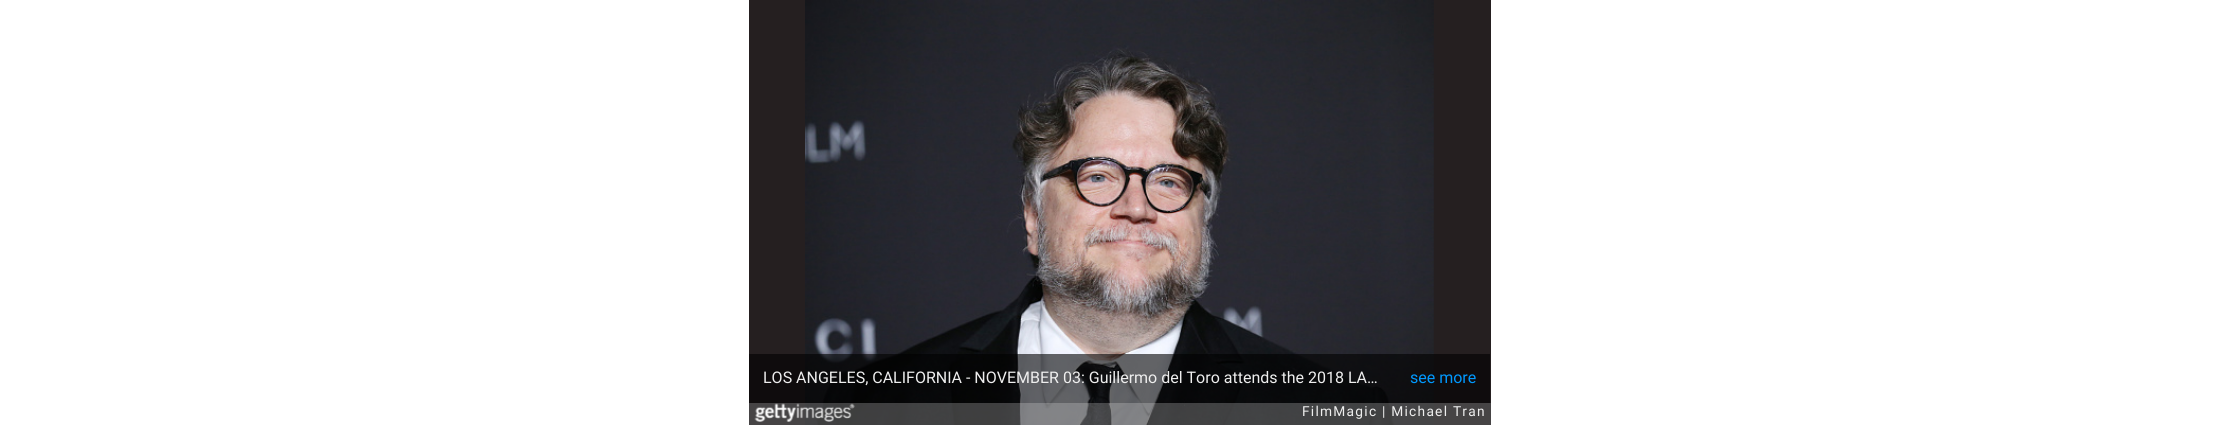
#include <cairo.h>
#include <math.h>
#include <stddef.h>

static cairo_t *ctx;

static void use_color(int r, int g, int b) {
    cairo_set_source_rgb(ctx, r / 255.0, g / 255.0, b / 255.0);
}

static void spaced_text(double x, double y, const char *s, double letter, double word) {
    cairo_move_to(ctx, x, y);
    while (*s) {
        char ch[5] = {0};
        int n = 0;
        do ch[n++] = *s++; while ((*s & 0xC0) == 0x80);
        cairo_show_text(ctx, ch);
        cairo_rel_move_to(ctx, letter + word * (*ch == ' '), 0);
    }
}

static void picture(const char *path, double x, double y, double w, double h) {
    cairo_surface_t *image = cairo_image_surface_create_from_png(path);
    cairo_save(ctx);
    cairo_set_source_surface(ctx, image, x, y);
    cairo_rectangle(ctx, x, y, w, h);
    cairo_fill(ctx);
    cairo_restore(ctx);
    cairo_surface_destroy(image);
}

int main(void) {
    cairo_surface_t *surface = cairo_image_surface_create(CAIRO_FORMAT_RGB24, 2238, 425);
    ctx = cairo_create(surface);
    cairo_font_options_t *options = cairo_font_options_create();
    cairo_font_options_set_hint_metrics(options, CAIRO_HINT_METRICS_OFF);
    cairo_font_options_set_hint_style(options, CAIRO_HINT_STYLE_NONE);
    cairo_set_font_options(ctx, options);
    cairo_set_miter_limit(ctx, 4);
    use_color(255, 255, 255);
    cairo_paint(ctx);
    use_color(37, 31, 32);
    cairo_rectangle(ctx, 749, 0, 742, 425);
    cairo_fill(ctx);
    picture("img1.png", 805, 0, 629, 425);
    cairo_set_source_rgba(ctx, 0, 0, 0, 0.6);
    cairo_rectangle(ctx, 749, 354, 741, 49);
    cairo_fill(ctx);
    cairo_select_font_face(ctx, "Roboto", CAIRO_FONT_SLANT_NORMAL, CAIRO_FONT_WEIGHT_NORMAL);
    cairo_set_font_size(ctx, 16);
    use_color(238, 238, 238);
    cairo_move_to(ctx, 763, 383);
    cairo_show_text(ctx, "LOS ANGELES, CALIFORNIA - NOVEMBER 03: Guillermo del Toro attends the 2018 LA…");
    use_color(0, 153, 255);
    cairo_move_to(ctx, 1410, 383);
    cairo_show_text(ctx, "see more");
    cairo_set_source_rgba(ctx, 0.333, 0.333, 0.333, 0.7);
    cairo_rectangle(ctx, 749, 403, 742, 22);
    cairo_fill(ctx);
    picture("img2.png", 754, 403, 101, 19);
    cairo_set_font_size(ctx, 13.75);
    use_color(238, 238, 238);
    spaced_text(1302, 416, "FilmMagic | Michael Tran", 1.25, 0);
    cairo_surface_write_to_png(surface, "result.png");
    cairo_font_options_destroy(options);
    cairo_destroy(ctx);
    cairo_surface_destroy(surface);
    return 0;
}
